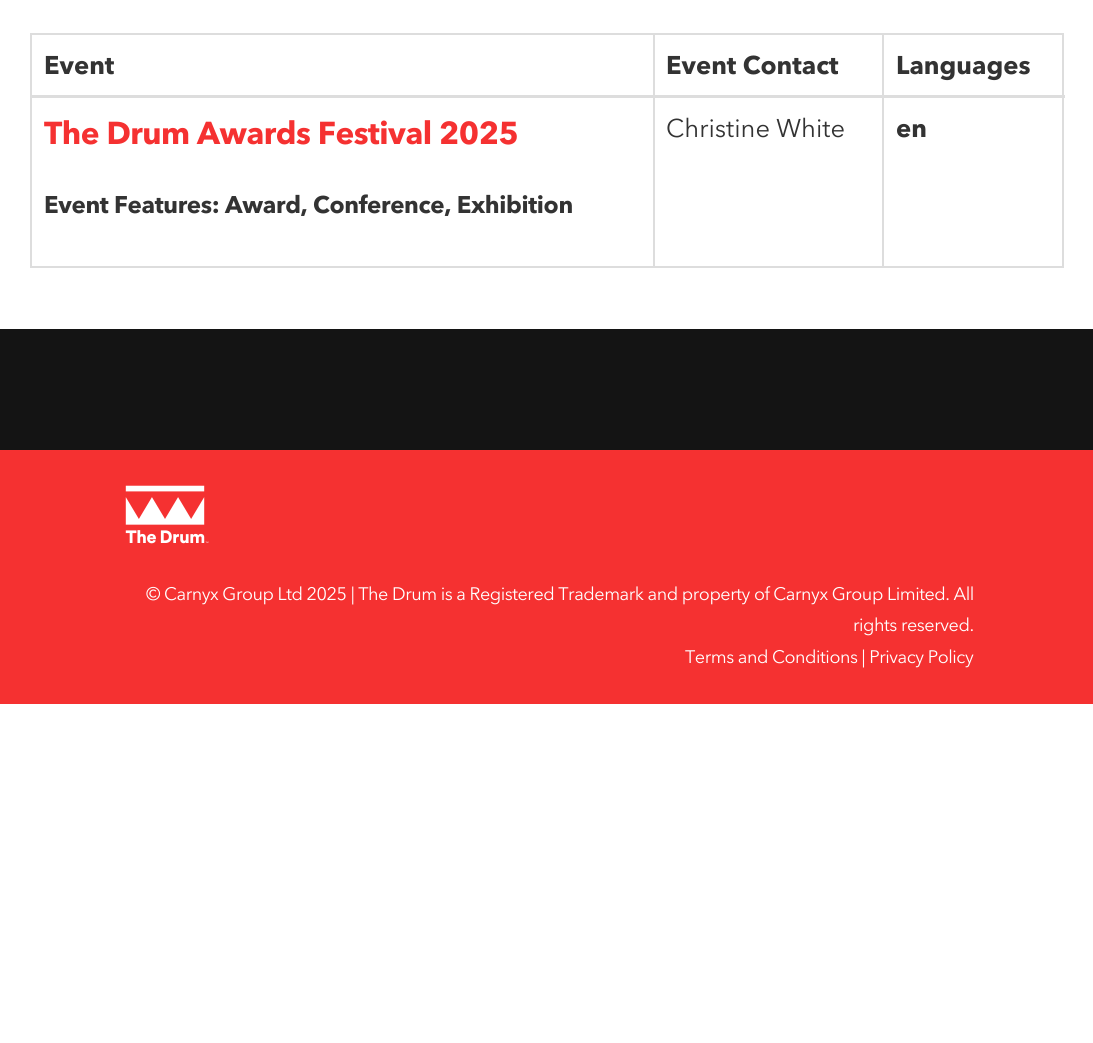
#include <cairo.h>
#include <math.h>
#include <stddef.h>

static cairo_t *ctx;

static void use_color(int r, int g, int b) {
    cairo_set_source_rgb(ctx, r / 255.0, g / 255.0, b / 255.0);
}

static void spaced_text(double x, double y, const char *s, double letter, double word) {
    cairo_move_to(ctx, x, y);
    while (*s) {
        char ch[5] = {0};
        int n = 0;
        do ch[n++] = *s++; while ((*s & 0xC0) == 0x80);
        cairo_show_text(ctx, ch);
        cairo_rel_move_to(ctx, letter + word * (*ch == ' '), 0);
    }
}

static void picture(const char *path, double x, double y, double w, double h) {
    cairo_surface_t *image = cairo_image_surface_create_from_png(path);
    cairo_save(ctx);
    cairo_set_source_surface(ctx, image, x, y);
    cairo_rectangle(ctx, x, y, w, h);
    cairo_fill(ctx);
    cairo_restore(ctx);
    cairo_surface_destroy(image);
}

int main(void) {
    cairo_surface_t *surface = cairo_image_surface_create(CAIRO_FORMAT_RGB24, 1093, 1043);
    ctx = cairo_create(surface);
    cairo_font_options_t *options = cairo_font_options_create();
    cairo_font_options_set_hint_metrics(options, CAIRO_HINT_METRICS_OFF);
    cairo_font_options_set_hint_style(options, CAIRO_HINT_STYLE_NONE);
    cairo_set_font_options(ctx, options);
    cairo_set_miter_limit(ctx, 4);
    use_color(255, 255, 255);
    cairo_paint(ctx);
    use_color(221, 221, 221);
    cairo_rectangle(ctx, 30, 33, 1034, 2);
    cairo_fill(ctx);
    cairo_rectangle(ctx, 1062, 33, 2, 234);
    cairo_fill(ctx);
    cairo_rectangle(ctx, 30, 266, 1034, 2);
    cairo_fill(ctx);
    cairo_rectangle(ctx, 30, 33, 2, 234);
    cairo_fill(ctx);
    cairo_select_font_face(ctx, "Avenir Next", CAIRO_FONT_SLANT_NORMAL, CAIRO_FONT_WEIGHT_BOLD);
    cairo_set_font_size(ctx, 25.5);
    use_color(51, 51, 51);
    cairo_move_to(ctx, 44, 74);
    cairo_show_text(ctx, "Event");
    cairo_move_to(ctx, 666, 74);
    cairo_show_text(ctx, "Event Contact");
    use_color(221, 221, 221);
    cairo_rectangle(ctx, 653, 33, 2, 234);
    cairo_fill(ctx);
    cairo_rectangle(ctx, 882, 33, 2, 234);
    cairo_fill(ctx);
    cairo_rectangle(ctx, 30, 95, 1035, 3);
    cairo_fill(ctx);
    use_color(51, 51, 51);
    cairo_move_to(ctx, 896, 74);
    cairo_show_text(ctx, "Languages");
    cairo_set_font_size(ctx, 31.5);
    use_color(245, 49, 49);
    spaced_text(44, 144, "The Drum Awards Festival 2025", -0.5, 0);
    cairo_set_font_size(ctx, 24);
    use_color(51, 51, 51);
    spaced_text(44, 213, "Event Features: Award, Conference, Exhibition", -0.35, 0);
    cairo_select_font_face(ctx, "Avenir Next", CAIRO_FONT_SLANT_NORMAL, CAIRO_FONT_WEIGHT_NORMAL);
    cairo_set_font_size(ctx, 25.5);
    cairo_move_to(ctx, 666, 137);
    cairo_show_text(ctx, "Christine White");
    cairo_select_font_face(ctx, "Avenir Next", CAIRO_FONT_SLANT_NORMAL, CAIRO_FONT_WEIGHT_BOLD);
    cairo_move_to(ctx, 896, 137);
    cairo_show_text(ctx, "en");
    use_color(20, 20, 20);
    cairo_rectangle(ctx, 0, 329, 1093, 121);
    cairo_fill(ctx);
    use_color(245, 49, 49);
    cairo_rectangle(ctx, 0, 450, 1093, 254);
    cairo_fill(ctx);
    picture("img1.png", 125, 485, 84, 59);
    cairo_select_font_face(ctx, "Avenir Next", CAIRO_FONT_SLANT_NORMAL, CAIRO_FONT_WEIGHT_NORMAL);
    cairo_set_font_size(ctx, 18);
    use_color(255, 255, 255);
    spaced_text(146, 600, "© Carnyx Group Ltd 2025 | The Drum is a Registered Trademark and property of Carnyx Group Limited. All", -0.45, 0);
    spaced_text(853, 631, "rights reserved.", -0.45, 0);
    spaced_text(685, 663, "Terms and Conditions | Privacy Policy", -0.45, 0);
    cairo_surface_write_to_png(surface, "result.png");
    cairo_font_options_destroy(options);
    cairo_destroy(ctx);
    cairo_surface_destroy(surface);
    return 0;
}
